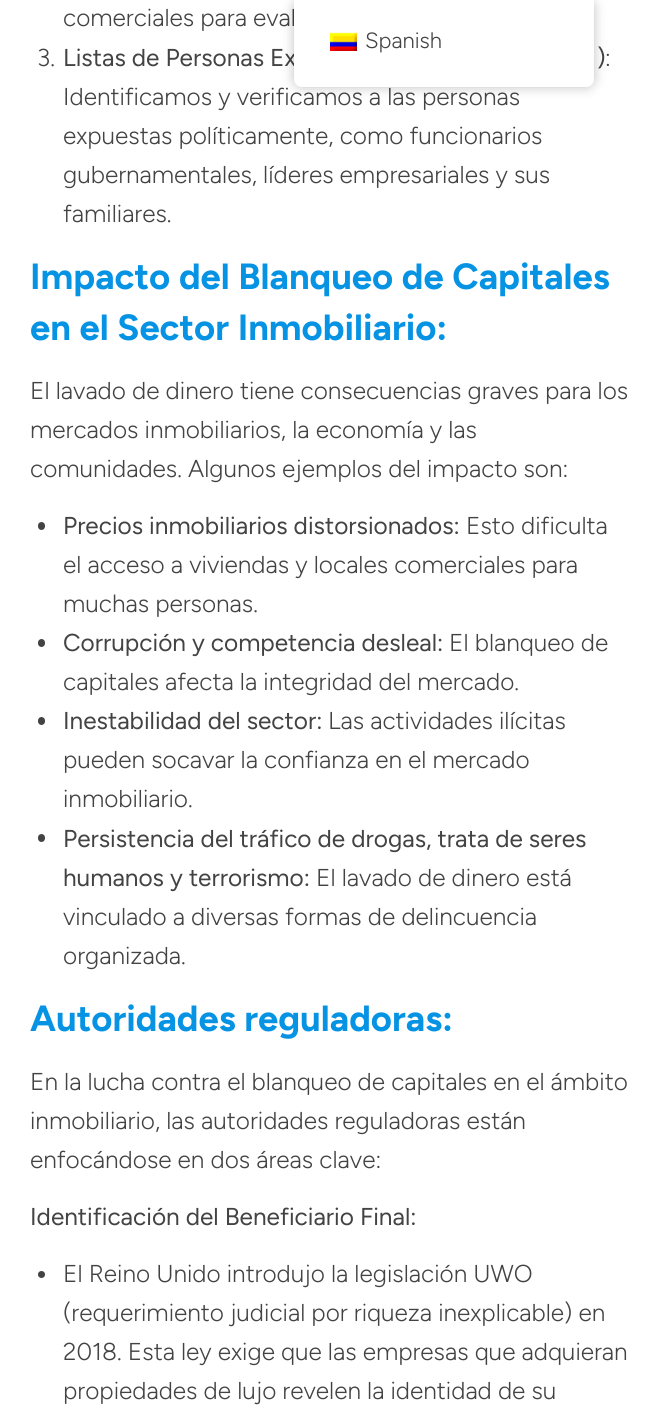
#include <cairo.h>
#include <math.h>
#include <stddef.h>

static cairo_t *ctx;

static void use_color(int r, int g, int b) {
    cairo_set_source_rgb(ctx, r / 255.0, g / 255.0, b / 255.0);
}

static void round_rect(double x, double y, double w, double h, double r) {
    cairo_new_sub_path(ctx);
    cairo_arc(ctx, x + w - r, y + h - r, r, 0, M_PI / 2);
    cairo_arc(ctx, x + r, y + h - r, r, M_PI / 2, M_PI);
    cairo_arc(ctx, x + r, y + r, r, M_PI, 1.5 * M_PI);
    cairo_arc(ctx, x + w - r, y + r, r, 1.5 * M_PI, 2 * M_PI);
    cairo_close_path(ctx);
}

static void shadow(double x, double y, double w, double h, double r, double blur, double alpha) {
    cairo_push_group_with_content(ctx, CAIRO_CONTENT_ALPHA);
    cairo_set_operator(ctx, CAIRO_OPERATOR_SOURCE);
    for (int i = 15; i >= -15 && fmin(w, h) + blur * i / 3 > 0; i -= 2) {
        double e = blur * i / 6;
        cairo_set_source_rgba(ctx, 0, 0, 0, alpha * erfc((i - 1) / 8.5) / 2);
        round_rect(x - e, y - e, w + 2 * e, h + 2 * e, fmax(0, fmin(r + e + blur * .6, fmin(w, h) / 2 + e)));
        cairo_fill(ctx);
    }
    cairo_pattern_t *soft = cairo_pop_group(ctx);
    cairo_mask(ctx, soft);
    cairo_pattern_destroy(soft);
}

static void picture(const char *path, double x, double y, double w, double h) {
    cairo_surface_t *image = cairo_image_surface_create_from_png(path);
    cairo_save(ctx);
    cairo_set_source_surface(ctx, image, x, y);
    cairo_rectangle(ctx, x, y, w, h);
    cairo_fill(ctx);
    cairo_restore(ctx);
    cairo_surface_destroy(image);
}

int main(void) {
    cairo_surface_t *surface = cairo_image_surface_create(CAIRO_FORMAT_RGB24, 659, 1421);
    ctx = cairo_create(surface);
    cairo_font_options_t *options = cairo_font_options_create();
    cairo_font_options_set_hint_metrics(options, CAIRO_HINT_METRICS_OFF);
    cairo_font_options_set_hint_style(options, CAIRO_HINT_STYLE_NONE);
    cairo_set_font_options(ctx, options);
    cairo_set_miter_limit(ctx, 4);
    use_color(255, 255, 255);
    cairo_paint(ctx);
    cairo_select_font_face(ctx, "Figtree Light", CAIRO_FONT_SLANT_NORMAL, CAIRO_FONT_WEIGHT_NORMAL);
    cairo_set_font_size(ctx, 24.4);
    use_color(67, 67, 67);
    cairo_move_to(ctx, 63, 26);
    cairo_show_text(ctx, "comerciales para eval");
    cairo_move_to(ctx, 37, 66);
    cairo_show_text(ctx, "3.");
    cairo_select_font_face(ctx, "Figtree", CAIRO_FONT_SLANT_NORMAL, CAIRO_FONT_WEIGHT_NORMAL);
    cairo_move_to(ctx, 63, 66);
    cairo_show_text(ctx, "Listas de Personas Ex");
    cairo_move_to(ctx, 597, 66);
    cairo_show_text(ctx, ")");
    cairo_select_font_face(ctx, "Figtree Light", CAIRO_FONT_SLANT_NORMAL, CAIRO_FONT_WEIGHT_NORMAL);
    cairo_move_to(ctx, 605, 66);
    cairo_show_text(ctx, ":");
    cairo_move_to(ctx, 63, 105);
    cairo_show_text(ctx, "Identificamos y verificamos a las personas");
    cairo_move_to(ctx, 63, 144);
    cairo_show_text(ctx, "expuestas políticamente, como funcionarios");
    cairo_move_to(ctx, 63, 183);
    cairo_show_text(ctx, "gubernamentales, líderes empresariales y sus");
    cairo_move_to(ctx, 63, 222);
    cairo_show_text(ctx, "familiares.");
    cairo_select_font_face(ctx, "Figtree", CAIRO_FONT_SLANT_NORMAL, CAIRO_FONT_WEIGHT_BOLD);
    cairo_set_font_size(ctx, 36.4);
    use_color(6, 147, 227);
    cairo_move_to(ctx, 30, 289);
    cairo_show_text(ctx, "Impacto del Blanqueo de Capitales");
    cairo_move_to(ctx, 30, 340);
    cairo_show_text(ctx, "en el Sector Inmobiliario:");
    cairo_select_font_face(ctx, "Figtree Light", CAIRO_FONT_SLANT_NORMAL, CAIRO_FONT_WEIGHT_NORMAL);
    cairo_set_font_size(ctx, 24.4);
    use_color(67, 67, 67);
    cairo_move_to(ctx, 30, 399);
    cairo_show_text(ctx, "El lavado de dinero tiene consecuencias graves para los");
    cairo_move_to(ctx, 30, 438);
    cairo_show_text(ctx, "mercados inmobiliarios, la economía y las");
    cairo_move_to(ctx, 30, 477);
    cairo_show_text(ctx, "comunidades. Algunos ejemplos del impacto son:");
    round_rect(38, 522, 7, 8, 3.5);
    cairo_fill(ctx);
    cairo_select_font_face(ctx, "Figtree", CAIRO_FONT_SLANT_NORMAL, CAIRO_FONT_WEIGHT_NORMAL);
    cairo_move_to(ctx, 63, 534);
    cairo_show_text(ctx, "Precios inmobiliarios distorsionados:");
    cairo_select_font_face(ctx, "Figtree Light", CAIRO_FONT_SLANT_NORMAL, CAIRO_FONT_WEIGHT_NORMAL);
    cairo_move_to(ctx, 466, 534);
    cairo_show_text(ctx, "Esto dificulta");
    cairo_move_to(ctx, 63, 573);
    cairo_show_text(ctx, "el acceso a viviendas y locales comerciales para");
    cairo_move_to(ctx, 63, 612);
    cairo_show_text(ctx, "muchas personas.");
    round_rect(38, 639, 7, 8, 3.5);
    cairo_fill(ctx);
    cairo_select_font_face(ctx, "Figtree", CAIRO_FONT_SLANT_NORMAL, CAIRO_FONT_WEIGHT_NORMAL);
    cairo_move_to(ctx, 63, 651);
    cairo_show_text(ctx, "Corrupción y competencia desleal:");
    cairo_select_font_face(ctx, "Figtree Light", CAIRO_FONT_SLANT_NORMAL, CAIRO_FONT_WEIGHT_NORMAL);
    cairo_move_to(ctx, 449, 651);
    cairo_show_text(ctx, "El blanqueo de");
    cairo_move_to(ctx, 63, 690);
    cairo_show_text(ctx, "capitales afecta la integridad del mercado.");
    round_rect(38, 717, 7, 8, 3.5);
    cairo_fill(ctx);
    cairo_select_font_face(ctx, "Figtree", CAIRO_FONT_SLANT_NORMAL, CAIRO_FONT_WEIGHT_NORMAL);
    cairo_move_to(ctx, 63, 729);
    cairo_show_text(ctx, "Inestabilidad del sector:");
    cairo_select_font_face(ctx, "Figtree Light", CAIRO_FONT_SLANT_NORMAL, CAIRO_FONT_WEIGHT_NORMAL);
    cairo_move_to(ctx, 328, 729);
    cairo_show_text(ctx, "Las actividades ilícitas");
    cairo_move_to(ctx, 63, 768);
    cairo_show_text(ctx, "pueden socavar la confianza en el mercado");
    cairo_move_to(ctx, 63, 807);
    cairo_show_text(ctx, "inmobiliario.");
    round_rect(38, 834, 7, 8, 3.5);
    cairo_fill(ctx);
    cairo_select_font_face(ctx, "Figtree", CAIRO_FONT_SLANT_NORMAL, CAIRO_FONT_WEIGHT_NORMAL);
    cairo_move_to(ctx, 63, 847);
    cairo_show_text(ctx, "Persistencia del tráfico de drogas, trata de seres");
    cairo_move_to(ctx, 63, 886);
    cairo_show_text(ctx, "humanos y terrorismo:");
    cairo_select_font_face(ctx, "Figtree Light", CAIRO_FONT_SLANT_NORMAL, CAIRO_FONT_WEIGHT_NORMAL);
    cairo_move_to(ctx, 316, 886);
    cairo_show_text(ctx, "El lavado de dinero está");
    cairo_move_to(ctx, 63, 925);
    cairo_show_text(ctx, "vinculado a diversas formas de delincuencia");
    cairo_move_to(ctx, 63, 964);
    cairo_show_text(ctx, "organizada.");
    cairo_select_font_face(ctx, "Figtree", CAIRO_FONT_SLANT_NORMAL, CAIRO_FONT_WEIGHT_BOLD);
    cairo_set_font_size(ctx, 36.4);
    use_color(6, 147, 227);
    cairo_move_to(ctx, 30, 1031);
    cairo_show_text(ctx, "Autoridades reguladoras:");
    cairo_select_font_face(ctx, "Figtree Light", CAIRO_FONT_SLANT_NORMAL, CAIRO_FONT_WEIGHT_NORMAL);
    cairo_set_font_size(ctx, 24.4);
    use_color(67, 67, 67);
    cairo_move_to(ctx, 30, 1090);
    cairo_show_text(ctx, "En la lucha contra el blanqueo de capitales en el ámbito");
    cairo_move_to(ctx, 30, 1129);
    cairo_show_text(ctx, "inmobiliario, las autoridades reguladoras están");
    cairo_move_to(ctx, 30, 1168);
    cairo_show_text(ctx, "enfocándose en dos áreas clave:");
    cairo_select_font_face(ctx, "Figtree", CAIRO_FONT_SLANT_NORMAL, CAIRO_FONT_WEIGHT_NORMAL);
    cairo_move_to(ctx, 30, 1225);
    cairo_show_text(ctx, "Identificación del Beneficiario Final:");
    cairo_new_path(ctx);
    cairo_arc(ctx, 41.5, 1274.5, 3.5, 0, 2 * M_PI);
    cairo_fill(ctx);
    cairo_select_font_face(ctx, "Figtree Light", CAIRO_FONT_SLANT_NORMAL, CAIRO_FONT_WEIGHT_NORMAL);
    cairo_move_to(ctx, 63, 1282);
    cairo_show_text(ctx, "El Reino Unido introdujo la legislación UWO");
    cairo_move_to(ctx, 63, 1321);
    cairo_show_text(ctx, "(requerimiento judicial por riqueza inexplicable) en");
    cairo_move_to(ctx, 63, 1360);
    cairo_show_text(ctx, "2018. Esta ley exige que las empresas que adquieran");
    cairo_move_to(ctx, 63, 1399);
    cairo_show_text(ctx, "propiedades de lujo revelen la identidad de su");
    use_color(0, 0, 0);
    shadow(294, 0, 300, 87, 8, 6, 0.25);
    use_color(255, 255, 255);
    cairo_new_path(ctx);
    cairo_move_to(ctx, 294, 0);
    cairo_line_to(ctx, 594, 0);
    cairo_line_to(ctx, 594, 79);
    cairo_curve_to(ctx, 594, 83.5, 590.5, 87, 586, 87);
    cairo_line_to(ctx, 302, 87);
    cairo_curve_to(ctx, 297.5, 87, 294, 83.5, 294, 79);
    cairo_close_path(ctx);
    cairo_fill(ctx);
    picture("img1.png", 330, 32, 27, 19);
    cairo_set_font_size(ctx, 22);
    use_color(67, 67, 67);
    cairo_move_to(ctx, 365, 48);
    cairo_show_text(ctx, "Spanish");
    cairo_surface_write_to_png(surface, "result.png");
    cairo_font_options_destroy(options);
    cairo_destroy(ctx);
    cairo_surface_destroy(surface);
    return 0;
}
